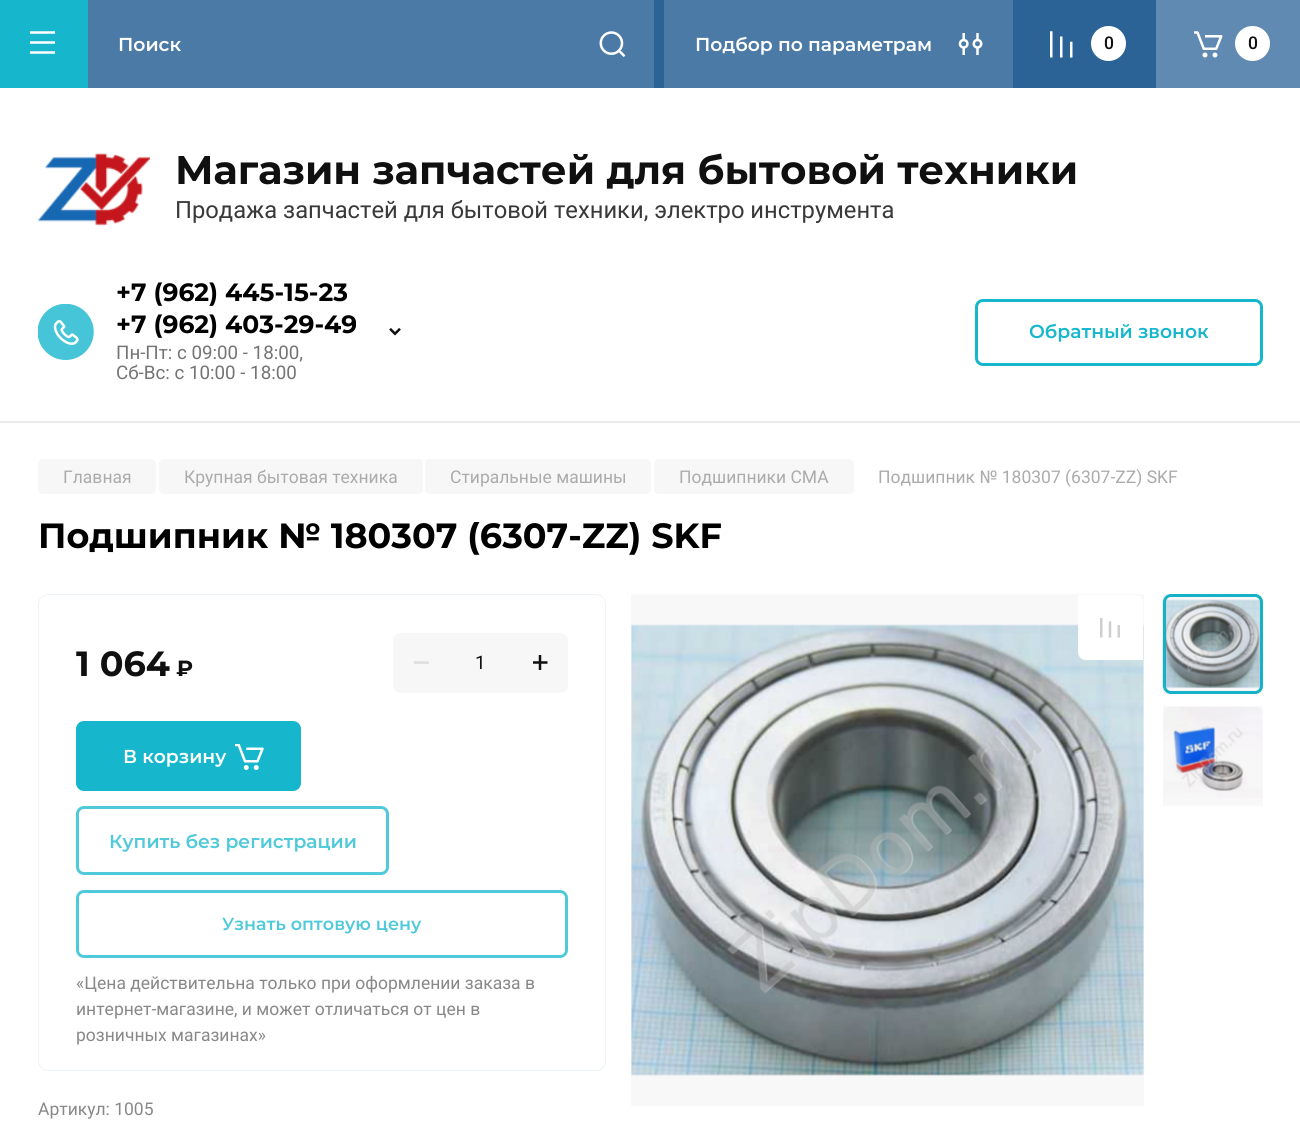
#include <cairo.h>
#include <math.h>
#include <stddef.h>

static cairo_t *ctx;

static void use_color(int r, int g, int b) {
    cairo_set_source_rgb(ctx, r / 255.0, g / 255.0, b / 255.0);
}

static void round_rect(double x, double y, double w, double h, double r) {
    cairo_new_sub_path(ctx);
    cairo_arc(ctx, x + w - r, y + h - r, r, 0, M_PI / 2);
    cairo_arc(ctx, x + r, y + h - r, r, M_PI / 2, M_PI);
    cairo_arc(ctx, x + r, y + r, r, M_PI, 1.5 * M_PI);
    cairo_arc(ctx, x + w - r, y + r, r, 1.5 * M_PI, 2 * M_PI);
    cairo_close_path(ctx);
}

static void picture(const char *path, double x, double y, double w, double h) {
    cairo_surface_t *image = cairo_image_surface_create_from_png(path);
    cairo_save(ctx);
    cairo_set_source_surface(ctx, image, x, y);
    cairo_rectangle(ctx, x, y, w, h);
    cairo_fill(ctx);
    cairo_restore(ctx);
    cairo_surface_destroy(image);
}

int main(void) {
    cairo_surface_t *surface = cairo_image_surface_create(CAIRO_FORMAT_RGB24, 1300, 1138);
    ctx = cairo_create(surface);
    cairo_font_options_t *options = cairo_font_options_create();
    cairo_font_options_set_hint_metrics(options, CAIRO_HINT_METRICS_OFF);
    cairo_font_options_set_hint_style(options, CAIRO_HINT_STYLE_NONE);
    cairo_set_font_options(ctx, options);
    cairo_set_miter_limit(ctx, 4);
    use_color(255, 255, 255);
    cairo_paint(ctx);
    use_color(22, 183, 205);
    cairo_rectangle(ctx, 0, 0, 88, 88);
    cairo_fill(ctx);
    picture("img1.png", 30, 31, 25, 23);
    use_color(43, 99, 151);
    cairo_rectangle(ctx, 654, 0, 10, 88);
    cairo_fill(ctx);
    use_color(75, 122, 167);
    cairo_rectangle(ctx, 88, 0, 566, 88);
    cairo_fill(ctx);
    cairo_select_font_face(ctx, "Montserrat SemiBold", CAIRO_FONT_SLANT_NORMAL, CAIRO_FONT_WEIGHT_NORMAL);
    cairo_set_font_size(ctx, 18.75);
    use_color(255, 255, 255);
    cairo_move_to(ctx, 118, 51);
    cairo_show_text(ctx, "Поиск");
    picture("img2.png", 599, 31, 27, 26);
    use_color(75, 122, 167);
    cairo_rectangle(ctx, 664, 0, 349, 88);
    cairo_fill(ctx);
    use_color(255, 255, 255);
    cairo_move_to(ctx, 695, 51);
    cairo_show_text(ctx, "Подбор по параметрам");
    picture("img3.png", 958, 33, 25, 22);
    use_color(43, 99, 151);
    cairo_rectangle(ctx, 1013, 0, 143, 88);
    cairo_fill(ctx);
    picture("img4.png", 1050, 31, 23, 27);
    use_color(255, 255, 255);
    cairo_arc(ctx, 1108.5, 43.5, 17.5, 0, 2 * M_PI);
    cairo_fill(ctx);
    cairo_select_font_face(ctx, "Roboto Medium", CAIRO_FONT_SLANT_NORMAL, CAIRO_FONT_WEIGHT_NORMAL);
    cairo_set_font_size(ctx, 17.5);
    use_color(16, 16, 16);
    cairo_move_to(ctx, 1104, 49);
    cairo_show_text(ctx, "0");
    use_color(96, 138, 177);
    cairo_rectangle(ctx, 1156, 0, 144, 88);
    cairo_fill(ctx);
    picture("img5.png", 1194, 31, 29, 27);
    use_color(255, 255, 255);
    cairo_arc(ctx, 1252.5, 43.5, 17.5, 0, 2 * M_PI);
    cairo_fill(ctx);
    use_color(16, 16, 16);
    cairo_move_to(ctx, 1248, 49);
    cairo_show_text(ctx, "0");
    use_color(235, 235, 235);
    cairo_rectangle(ctx, 0, 421, 1300, 2);
    cairo_fill(ctx);
    picture("img6.png", 37, 153, 113, 73);
    cairo_select_font_face(ctx, "Montserrat", CAIRO_FONT_SLANT_NORMAL, CAIRO_FONT_WEIGHT_BOLD);
    cairo_set_font_size(ctx, 40);
    use_color(16, 16, 16);
    cairo_move_to(ctx, 175, 184);
    cairo_show_text(ctx, "Магазин запчастей для бытовой техники");
    cairo_select_font_face(ctx, "Roboto", CAIRO_FONT_SLANT_NORMAL, CAIRO_FONT_WEIGHT_NORMAL);
    cairo_set_font_size(ctx, 23.75);
    use_color(57, 57, 57);
    cairo_move_to(ctx, 175, 218);
    cairo_show_text(ctx, "Продажа запчастей для бытовой техники, электро инструмента");
    picture("img7.png", 38, 304, 56, 56);
    cairo_select_font_face(ctx, "Montserrat", CAIRO_FONT_SLANT_NORMAL, CAIRO_FONT_WEIGHT_BOLD);
    cairo_set_font_size(ctx, 25);
    use_color(0, 0, 0);
    cairo_move_to(ctx, 116, 301);
    cairo_show_text(ctx, "+7 (962) 445-15-23");
    cairo_move_to(ctx, 116, 333);
    cairo_show_text(ctx, "+7 (962) 403-29-49");
    cairo_select_font_face(ctx, "Roboto", CAIRO_FONT_SLANT_NORMAL, CAIRO_FONT_WEIGHT_NORMAL);
    cairo_set_font_size(ctx, 18.75);
    use_color(116, 116, 116);
    cairo_move_to(ctx, 116, 359);
    cairo_show_text(ctx, "Пн-Пт: с 09:00 - 18:00,");
    cairo_move_to(ctx, 116, 379);
    cairo_show_text(ctx, "Сб-Вс: с 10:00 - 18:00");
    picture("img8.png", 389, 328, 12, 8);
    round_rect(976.5, 300.5, 285, 64, 6.5);
    use_color(22, 183, 205);
    cairo_set_line_width(ctx, 3);
    cairo_stroke(ctx);
    cairo_select_font_face(ctx, "Montserrat SemiBold", CAIRO_FONT_SLANT_NORMAL, CAIRO_FONT_WEIGHT_NORMAL);
    cairo_move_to(ctx, 1029, 338);
    cairo_show_text(ctx, "Обратный звонок");
    use_color(247, 247, 247);
    round_rect(38, 459, 118, 35, 5);
    cairo_fill(ctx);
    cairo_select_font_face(ctx, "Roboto", CAIRO_FONT_SLANT_NORMAL, CAIRO_FONT_WEIGHT_NORMAL);
    cairo_set_font_size(ctx, 17.5);
    use_color(171, 171, 171);
    cairo_move_to(ctx, 63, 483);
    cairo_show_text(ctx, "Главная");
    use_color(247, 247, 247);
    round_rect(159, 459, 264, 35, 5);
    cairo_fill(ctx);
    use_color(171, 171, 171);
    cairo_move_to(ctx, 184, 483);
    cairo_show_text(ctx, "Крупная бытовая техника");
    use_color(247, 247, 247);
    round_rect(425, 459, 226, 35, 5);
    cairo_fill(ctx);
    use_color(171, 171, 171);
    cairo_move_to(ctx, 450, 483);
    cairo_show_text(ctx, "Стиральные машины");
    use_color(247, 247, 247);
    round_rect(654, 459, 200, 35, 5);
    cairo_fill(ctx);
    use_color(171, 171, 171);
    cairo_move_to(ctx, 679, 483);
    cairo_show_text(ctx, "Подшипники СМА");
    cairo_move_to(ctx, 878, 483);
    cairo_show_text(ctx, "Подшипник № 180307 (6307-ZZ) SKF");
    cairo_select_font_face(ctx, "Montserrat", CAIRO_FONT_SLANT_NORMAL, CAIRO_FONT_WEIGHT_BOLD);
    cairo_set_font_size(ctx, 35);
    use_color(0, 0, 0);
    cairo_move_to(ctx, 38, 548);
    cairo_show_text(ctx, "Подшипник № 180307 (6307-ZZ) SKF");
    round_rect(38.5, 594.5, 567, 476, 9.5);
    use_color(238, 243, 247);
    cairo_set_line_width(ctx, 1);
    cairo_stroke(ctx);
    use_color(16, 16, 16);
    cairo_move_to(ctx, 76, 676);
    cairo_show_text(ctx, "1 064");
    cairo_set_font_size(ctx, 22);
    cairo_move_to(ctx, 176, 676);
    cairo_show_text(ctx, "₽");
    use_color(247, 247, 247);
    round_rect(393, 633, 175, 60, 8);
    cairo_fill(ctx);
    use_color(224, 224, 224);
    cairo_new_path(ctx);
    cairo_move_to(ctx, 429, 664);
    cairo_line_to(ctx, 414, 664);
    cairo_line_to(ctx, 414, 661);
    cairo_line_to(ctx, 429, 661.5);
    cairo_close_path(ctx);
    cairo_fill(ctx);
    cairo_select_font_face(ctx, "Roboto", CAIRO_FONT_SLANT_NORMAL, CAIRO_FONT_WEIGHT_NORMAL);
    cairo_set_font_size(ctx, 18.75);
    use_color(16, 16, 16);
    cairo_move_to(ctx, 475, 669);
    cairo_show_text(ctx, "1");
    picture("img9.png", 533, 655, 15, 15);
    use_color(22, 183, 205);
    round_rect(76, 721, 225, 70, 8);
    cairo_fill(ctx);
    cairo_select_font_face(ctx, "Montserrat SemiBold", CAIRO_FONT_SLANT_NORMAL, CAIRO_FONT_WEIGHT_NORMAL);
    use_color(255, 255, 255);
    cairo_move_to(ctx, 123, 763);
    cairo_show_text(ctx, "В корзину");
    picture("img10.png", 235, 744, 29, 26);
    round_rect(77.5, 807.5, 310, 66, 6.5);
    use_color(80, 201, 218);
    cairo_set_line_width(ctx, 3);
    cairo_stroke(ctx);
    cairo_move_to(ctx, 109, 848);
    cairo_show_text(ctx, "Купить без регистрации");
    round_rect(77.5, 891.5, 489, 65, 6.5);
    cairo_stroke(ctx);
    cairo_set_font_size(ctx, 17.5);
    cairo_move_to(ctx, 222, 930);
    cairo_show_text(ctx, "Узнать оптовую цену");
    cairo_select_font_face(ctx, "Roboto", CAIRO_FONT_SLANT_NORMAL, CAIRO_FONT_WEIGHT_NORMAL);
    use_color(136, 136, 136);
    cairo_move_to(ctx, 76, 989);
    cairo_show_text(ctx, "«Цена действительна только при оформлении заказа в");
    cairo_move_to(ctx, 76, 1015);
    cairo_show_text(ctx, "интернет-магазине, и может отличаться от цен в");
    cairo_move_to(ctx, 76, 1041);
    cairo_show_text(ctx, "розничных магазинах»");
    cairo_move_to(ctx, 38, 1115);
    cairo_show_text(ctx, "Артикул: 1005");
    picture("img11.png", 631, 624, 513, 452);
    cairo_set_source_rgba(ctx, 0, 0, 0, 0.03);
    cairo_rectangle(ctx, 631, 594, 513, 512);
    cairo_fill(ctx);
    picture("img12.png", 1162, 599, 101, 89);
    round_rect(1164.5, 595.5, 97, 97, 6.5);
    use_color(22, 183, 205);
    cairo_stroke(ctx);
    cairo_set_source_rgba(ctx, 0, 0, 0, 0.03);
    cairo_rectangle(ctx, 1163, 594, 100, 100);
    cairo_fill(ctx);
    picture("img13.png", 1163, 707, 99, 91);
    cairo_rectangle(ctx, 1163, 706, 100, 100);
    cairo_fill(ctx);
    use_color(255, 255, 255);
    cairo_new_path(ctx);
    cairo_move_to(ctx, 1078, 595);
    cairo_line_to(ctx, 1135, 595);
    cairo_curve_to(ctx, 1139.5, 595, 1143, 598.5, 1143, 603);
    cairo_line_to(ctx, 1143, 660);
    cairo_line_to(ctx, 1086, 660);
    cairo_curve_to(ctx, 1081.5, 660, 1078, 656.5, 1078, 652);
    cairo_close_path(ctx);
    cairo_fill(ctx);
    picture("img14.png", 1100, 618, 20, 20);
    cairo_surface_write_to_png(surface, "result.png");
    cairo_font_options_destroy(options);
    cairo_destroy(ctx);
    cairo_surface_destroy(surface);
    return 0;
}
